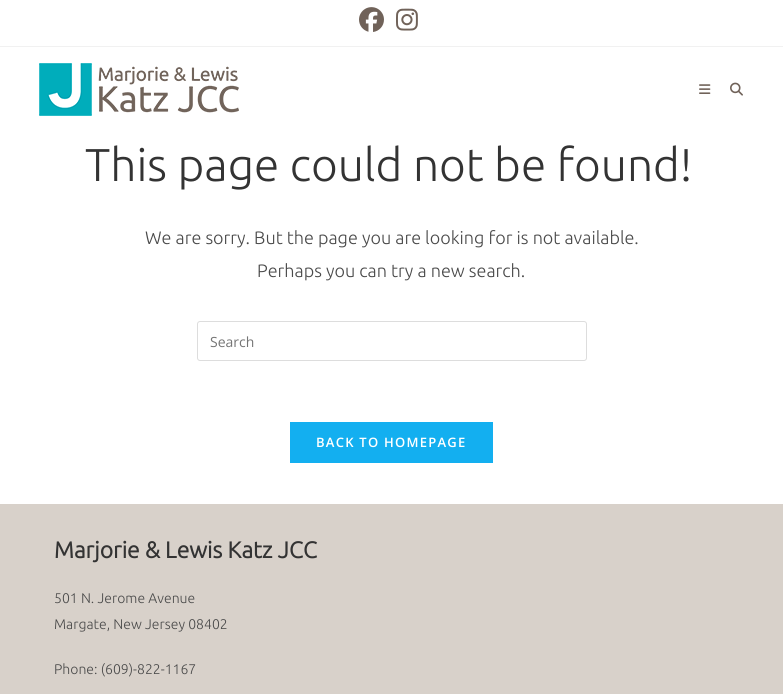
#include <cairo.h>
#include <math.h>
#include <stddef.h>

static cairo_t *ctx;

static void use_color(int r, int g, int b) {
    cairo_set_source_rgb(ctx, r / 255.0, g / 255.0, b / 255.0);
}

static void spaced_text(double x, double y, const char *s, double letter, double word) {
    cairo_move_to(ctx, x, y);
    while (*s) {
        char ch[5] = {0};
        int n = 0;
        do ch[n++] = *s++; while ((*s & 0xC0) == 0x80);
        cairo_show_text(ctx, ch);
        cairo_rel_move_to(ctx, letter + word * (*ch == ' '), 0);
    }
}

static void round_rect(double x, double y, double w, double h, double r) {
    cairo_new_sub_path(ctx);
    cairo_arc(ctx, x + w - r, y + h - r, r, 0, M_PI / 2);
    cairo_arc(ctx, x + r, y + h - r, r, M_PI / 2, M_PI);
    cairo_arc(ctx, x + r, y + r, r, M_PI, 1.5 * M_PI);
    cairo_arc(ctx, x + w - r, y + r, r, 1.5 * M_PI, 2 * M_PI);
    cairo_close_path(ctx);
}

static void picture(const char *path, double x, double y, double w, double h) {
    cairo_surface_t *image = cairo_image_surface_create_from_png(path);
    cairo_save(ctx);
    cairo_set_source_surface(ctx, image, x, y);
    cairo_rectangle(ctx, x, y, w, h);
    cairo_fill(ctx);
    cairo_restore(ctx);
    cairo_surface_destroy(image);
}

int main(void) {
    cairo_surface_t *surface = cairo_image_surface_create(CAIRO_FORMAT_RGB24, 783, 694);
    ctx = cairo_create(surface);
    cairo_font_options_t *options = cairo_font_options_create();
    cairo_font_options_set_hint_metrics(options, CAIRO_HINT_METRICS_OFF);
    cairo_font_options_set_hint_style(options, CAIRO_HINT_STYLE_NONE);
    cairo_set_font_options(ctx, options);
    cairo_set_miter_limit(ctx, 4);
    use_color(255, 255, 255);
    cairo_paint(ctx);
    use_color(241, 241, 241);
    cairo_rectangle(ctx, 0, 46, 783, 1);
    cairo_fill(ctx);
    picture("img1.png", 359, 7, 25, 25);
    picture("img2.png", 396, 8, 22, 23);
    picture("img3.png", 39, 63, 200, 53);
    picture("img4.png", 699, 84, 12, 10);
    picture("img5.png", 730, 82, 13, 14);
    cairo_select_font_face(ctx, "Ubuntu Light", CAIRO_FONT_SLANT_NORMAL, CAIRO_FONT_WEIGHT_NORMAL);
    cairo_set_font_size(ctx, 46);
    use_color(51, 51, 51);
    cairo_move_to(ctx, 85, 181);
    cairo_show_text(ctx, "This page could not be found!");
    cairo_set_font_size(ctx, 18);
    use_color(74, 74, 74);
    cairo_move_to(ctx, 145, 244);
    cairo_show_text(ctx, "We are sorry. But the page you are looking for is not available.");
    cairo_move_to(ctx, 257, 277);
    cairo_show_text(ctx, "Perhaps you can try a new search.");
    round_rect(197.5, 321.5, 389, 39, 2.5);
    use_color(221, 221, 221);
    cairo_set_line_width(ctx, 1);
    cairo_stroke(ctx);
    cairo_select_font_face(ctx, "Open Sans", CAIRO_FONT_SLANT_NORMAL, CAIRO_FONT_WEIGHT_NORMAL);
    cairo_set_font_size(ctx, 14);
    use_color(117, 117, 117);
    cairo_move_to(ctx, 210, 347);
    cairo_show_text(ctx, "Search");
    use_color(19, 175, 240);
    cairo_rectangle(ctx, 290, 422, 203, 41);
    cairo_fill(ctx);
    cairo_select_font_face(ctx, "Open Sans SemiBold", CAIRO_FONT_SLANT_NORMAL, CAIRO_FONT_WEIGHT_NORMAL);
    cairo_set_font_size(ctx, 13);
    use_color(255, 255, 255);
    spaced_text(316, 447, "BACK TO HOMEPAGE", 1.25, 0);
    use_color(216, 209, 202);
    cairo_rectangle(ctx, 0, 504, 783, 190);
    cairo_fill(ctx);
    cairo_select_font_face(ctx, "Ubuntu", CAIRO_FONT_SLANT_NORMAL, CAIRO_FONT_WEIGHT_BOLD);
    cairo_set_font_size(ctx, 23);
    use_color(51, 51, 51);
    cairo_move_to(ctx, 54, 558);
    cairo_show_text(ctx, "Marjorie & Lewis Katz JCC");
    cairo_select_font_face(ctx, "Ubuntu Light", CAIRO_FONT_SLANT_NORMAL, CAIRO_FONT_WEIGHT_NORMAL);
    cairo_set_font_size(ctx, 14);
    use_color(74, 74, 74);
    cairo_move_to(ctx, 54, 603);
    cairo_show_text(ctx, "501 N. Jerome Avenue");
    cairo_move_to(ctx, 54, 629);
    cairo_show_text(ctx, "Margate, New Jersey 08402");
    cairo_move_to(ctx, 54, 674);
    cairo_show_text(ctx, "Phone: (609)-822-1167");
    cairo_surface_write_to_png(surface, "result.png");
    cairo_font_options_destroy(options);
    cairo_destroy(ctx);
    cairo_surface_destroy(surface);
    return 0;
}
